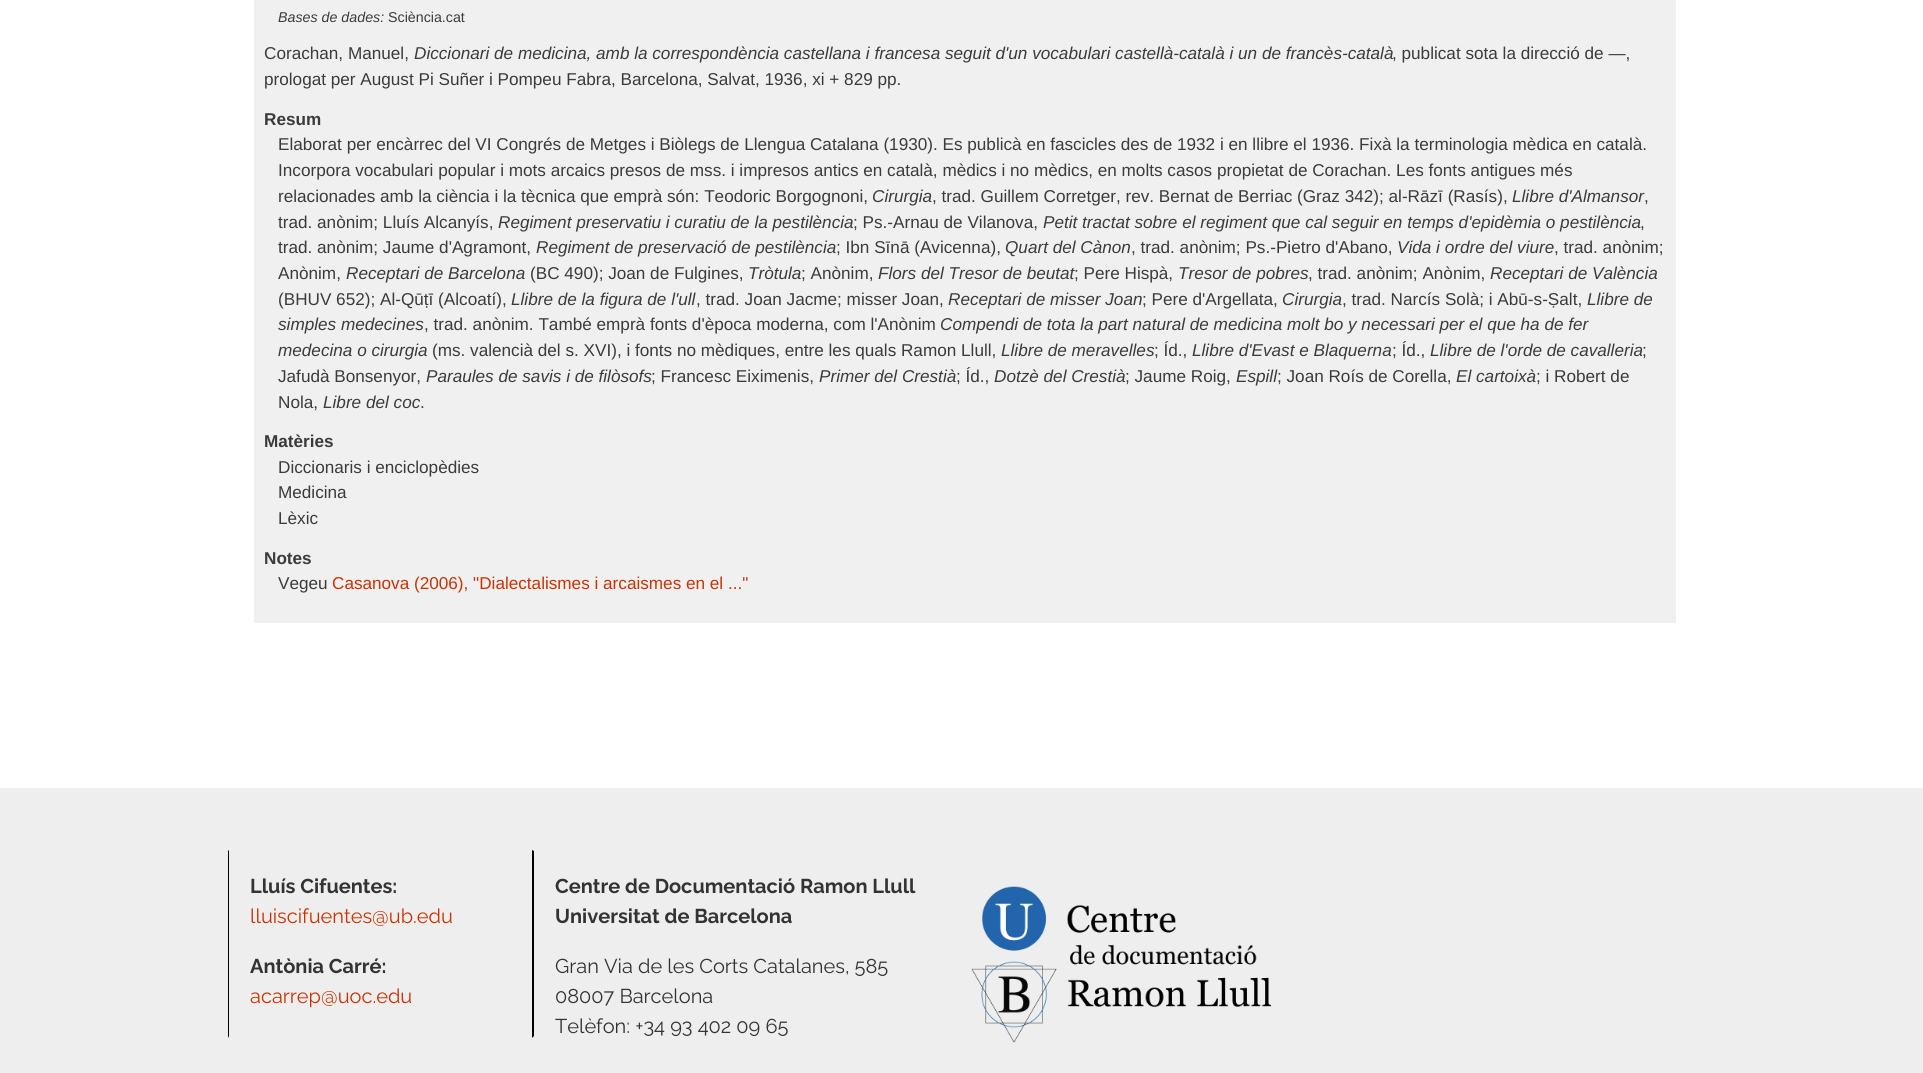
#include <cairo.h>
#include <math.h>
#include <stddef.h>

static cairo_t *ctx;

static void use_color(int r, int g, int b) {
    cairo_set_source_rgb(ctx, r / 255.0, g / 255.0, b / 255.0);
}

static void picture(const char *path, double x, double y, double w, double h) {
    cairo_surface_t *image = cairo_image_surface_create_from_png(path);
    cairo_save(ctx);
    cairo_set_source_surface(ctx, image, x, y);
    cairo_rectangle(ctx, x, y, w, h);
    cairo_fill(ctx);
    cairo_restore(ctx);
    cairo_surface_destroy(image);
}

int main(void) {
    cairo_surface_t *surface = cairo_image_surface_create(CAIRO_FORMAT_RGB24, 1923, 1073);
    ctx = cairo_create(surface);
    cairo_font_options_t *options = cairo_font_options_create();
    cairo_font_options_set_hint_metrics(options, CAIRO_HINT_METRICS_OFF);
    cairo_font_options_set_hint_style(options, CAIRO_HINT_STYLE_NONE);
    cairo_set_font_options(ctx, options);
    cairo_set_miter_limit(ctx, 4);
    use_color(255, 255, 255);
    cairo_paint(ctx);
    use_color(240, 240, 240);
    cairo_rectangle(ctx, 254, 0, 1422, 623);
    cairo_fill(ctx);
    cairo_select_font_face(ctx, "Liberation Sans", CAIRO_FONT_SLANT_ITALIC, CAIRO_FONT_WEIGHT_NORMAL);
    cairo_set_font_size(ctx, 14.25);
    use_color(59, 59, 59);
    cairo_move_to(ctx, 278, 22);
    cairo_show_text(ctx, "Bases de dades:");
    cairo_select_font_face(ctx, "Liberation Sans", CAIRO_FONT_SLANT_NORMAL, CAIRO_FONT_WEIGHT_NORMAL);
    cairo_move_to(ctx, 388, 22);
    cairo_show_text(ctx, "Sciència.cat");
    cairo_set_font_size(ctx, 17.15);
    cairo_move_to(ctx, 264, 59);
    cairo_show_text(ctx, "Corachan, Manuel,");
    cairo_select_font_face(ctx, "Liberation Sans", CAIRO_FONT_SLANT_ITALIC, CAIRO_FONT_WEIGHT_NORMAL);
    cairo_move_to(ctx, 414, 59);
    cairo_show_text(ctx, "Diccionari de medicina, amb la correspondència castellana i francesa seguit d'un vocabulari castellà-català i un de francès-català");
    cairo_select_font_face(ctx, "Liberation Sans", CAIRO_FONT_SLANT_NORMAL, CAIRO_FONT_WEIGHT_NORMAL);
    cairo_move_to(ctx, 1392, 59);
    cairo_show_text(ctx, ", publicat sota la direcció de —,");
    cairo_move_to(ctx, 264, 85);
    cairo_show_text(ctx, "prologat per August Pi Suñer i Pompeu Fabra, Barcelona, Salvat, 1936, xi + 829 pp.");
    cairo_select_font_face(ctx, "Liberation Sans", CAIRO_FONT_SLANT_NORMAL, CAIRO_FONT_WEIGHT_BOLD);
    cairo_move_to(ctx, 264, 125);
    cairo_show_text(ctx, "Resum");
    cairo_select_font_face(ctx, "Liberation Sans", CAIRO_FONT_SLANT_NORMAL, CAIRO_FONT_WEIGHT_NORMAL);
    cairo_move_to(ctx, 278, 150);
    cairo_show_text(ctx, "Elaborat per encàrrec del VI Congrés de Metges i Biòlegs de Llengua Catalana (1930). Es publicà en fascicles des de 1932 i en llibre el 1936. Fixà la terminologia mèdica en català.");
    cairo_move_to(ctx, 278, 176);
    cairo_show_text(ctx, "Incorpora vocabulari popular i mots arcaics presos de mss. i impresos antics en català, mèdics i no mèdics, en molts casos propietat de Corachan. Les fonts antigues més");
    cairo_move_to(ctx, 278, 202);
    cairo_show_text(ctx, "relacionades amb la ciència i la tècnica que emprà són: Teodoric Borgognoni,");
    cairo_select_font_face(ctx, "Liberation Sans", CAIRO_FONT_SLANT_ITALIC, CAIRO_FONT_WEIGHT_NORMAL);
    cairo_move_to(ctx, 872, 202);
    cairo_show_text(ctx, "Cirurgia");
    cairo_select_font_face(ctx, "Liberation Sans", CAIRO_FONT_SLANT_NORMAL, CAIRO_FONT_WEIGHT_NORMAL);
    cairo_move_to(ctx, 932, 202);
    cairo_show_text(ctx, ", trad. Guillem Corretger, rev. Bernat de Berriac (Graz 342); al-Rāzī (Rasís),");
    cairo_select_font_face(ctx, "Liberation Sans", CAIRO_FONT_SLANT_ITALIC, CAIRO_FONT_WEIGHT_NORMAL);
    cairo_move_to(ctx, 1512, 202);
    cairo_show_text(ctx, "Llibre d'Almansor");
    cairo_select_font_face(ctx, "Liberation Sans", CAIRO_FONT_SLANT_NORMAL, CAIRO_FONT_WEIGHT_NORMAL);
    cairo_move_to(ctx, 1644, 202);
    cairo_show_text(ctx, ",");
    cairo_move_to(ctx, 278, 228);
    cairo_show_text(ctx, "trad. anònim; Lluís Alcanyís,");
    cairo_select_font_face(ctx, "Liberation Sans", CAIRO_FONT_SLANT_ITALIC, CAIRO_FONT_WEIGHT_NORMAL);
    cairo_move_to(ctx, 498, 228);
    cairo_show_text(ctx, "Regiment preservatiu i curatiu de la pestilència");
    cairo_select_font_face(ctx, "Liberation Sans", CAIRO_FONT_SLANT_NORMAL, CAIRO_FONT_WEIGHT_NORMAL);
    cairo_move_to(ctx, 853, 228);
    cairo_show_text(ctx, "; Ps.-Arnau de Vilanova,");
    cairo_select_font_face(ctx, "Liberation Sans", CAIRO_FONT_SLANT_ITALIC, CAIRO_FONT_WEIGHT_NORMAL);
    cairo_move_to(ctx, 1043, 228);
    cairo_show_text(ctx, "Petit tractat sobre el regiment que cal seguir en temps d'epidèmia o pestilència");
    cairo_select_font_face(ctx, "Liberation Sans", CAIRO_FONT_SLANT_NORMAL, CAIRO_FONT_WEIGHT_NORMAL);
    cairo_move_to(ctx, 1640, 228);
    cairo_show_text(ctx, ",");
    cairo_move_to(ctx, 278, 253);
    cairo_show_text(ctx, "trad. anònim; Jaume d'Agramont,");
    cairo_select_font_face(ctx, "Liberation Sans", CAIRO_FONT_SLANT_ITALIC, CAIRO_FONT_WEIGHT_NORMAL);
    cairo_move_to(ctx, 536, 253);
    cairo_show_text(ctx, "Regiment de preservació de pestilència");
    cairo_select_font_face(ctx, "Liberation Sans", CAIRO_FONT_SLANT_NORMAL, CAIRO_FONT_WEIGHT_NORMAL);
    cairo_move_to(ctx, 836, 253);
    cairo_show_text(ctx, "; Ibn Sīnā (Avicenna),");
    cairo_select_font_face(ctx, "Liberation Sans", CAIRO_FONT_SLANT_ITALIC, CAIRO_FONT_WEIGHT_NORMAL);
    cairo_move_to(ctx, 1005, 253);
    cairo_show_text(ctx, "Quart del Cànon");
    cairo_select_font_face(ctx, "Liberation Sans", CAIRO_FONT_SLANT_NORMAL, CAIRO_FONT_WEIGHT_NORMAL);
    cairo_move_to(ctx, 1131, 253);
    cairo_show_text(ctx, ", trad. anònim; Ps.-Pietro d'Abano,");
    cairo_select_font_face(ctx, "Liberation Sans", CAIRO_FONT_SLANT_ITALIC, CAIRO_FONT_WEIGHT_NORMAL);
    cairo_move_to(ctx, 1397, 253);
    cairo_show_text(ctx, "Vida i ordre del viure");
    cairo_select_font_face(ctx, "Liberation Sans", CAIRO_FONT_SLANT_NORMAL, CAIRO_FONT_WEIGHT_NORMAL);
    cairo_move_to(ctx, 1554, 253);
    cairo_show_text(ctx, ", trad. anònim;");
    cairo_move_to(ctx, 278, 279);
    cairo_show_text(ctx, "Anònim,");
    cairo_select_font_face(ctx, "Liberation Sans", CAIRO_FONT_SLANT_ITALIC, CAIRO_FONT_WEIGHT_NORMAL);
    cairo_move_to(ctx, 346, 279);
    cairo_show_text(ctx, "Receptari de Barcelona");
    cairo_select_font_face(ctx, "Liberation Sans", CAIRO_FONT_SLANT_NORMAL, CAIRO_FONT_WEIGHT_NORMAL);
    cairo_move_to(ctx, 530, 279);
    cairo_show_text(ctx, "(BC 490); Joan de Fulgines,");
    cairo_select_font_face(ctx, "Liberation Sans", CAIRO_FONT_SLANT_ITALIC, CAIRO_FONT_WEIGHT_NORMAL);
    cairo_move_to(ctx, 748, 279);
    cairo_show_text(ctx, "Tròtula");
    cairo_select_font_face(ctx, "Liberation Sans", CAIRO_FONT_SLANT_NORMAL, CAIRO_FONT_WEIGHT_NORMAL);
    cairo_move_to(ctx, 801, 279);
    cairo_show_text(ctx, "; Anònim,");
    cairo_select_font_face(ctx, "Liberation Sans", CAIRO_FONT_SLANT_ITALIC, CAIRO_FONT_WEIGHT_NORMAL);
    cairo_move_to(ctx, 878, 279);
    cairo_show_text(ctx, "Flors del Tresor de beutat");
    cairo_select_font_face(ctx, "Liberation Sans", CAIRO_FONT_SLANT_NORMAL, CAIRO_FONT_WEIGHT_NORMAL);
    cairo_move_to(ctx, 1074, 279);
    cairo_show_text(ctx, "; Pere Hispà,");
    cairo_select_font_face(ctx, "Liberation Sans", CAIRO_FONT_SLANT_ITALIC, CAIRO_FONT_WEIGHT_NORMAL);
    cairo_move_to(ctx, 1178, 279);
    cairo_show_text(ctx, "Tresor de pobres");
    cairo_select_font_face(ctx, "Liberation Sans", CAIRO_FONT_SLANT_NORMAL, CAIRO_FONT_WEIGHT_NORMAL);
    cairo_move_to(ctx, 1308, 279);
    cairo_show_text(ctx, ", trad. anònim; Anònim,");
    cairo_select_font_face(ctx, "Liberation Sans", CAIRO_FONT_SLANT_ITALIC, CAIRO_FONT_WEIGHT_NORMAL);
    cairo_move_to(ctx, 1490, 279);
    cairo_show_text(ctx, "Receptari de València");
    cairo_select_font_face(ctx, "Liberation Sans", CAIRO_FONT_SLANT_NORMAL, CAIRO_FONT_WEIGHT_NORMAL);
    cairo_move_to(ctx, 278, 305);
    cairo_show_text(ctx, "(BHUV 652); Al-Qūṭī (Alcoatí),");
    cairo_select_font_face(ctx, "Liberation Sans", CAIRO_FONT_SLANT_ITALIC, CAIRO_FONT_WEIGHT_NORMAL);
    cairo_move_to(ctx, 511, 305);
    cairo_show_text(ctx, "Llibre de la figura de l'ull");
    cairo_select_font_face(ctx, "Liberation Sans", CAIRO_FONT_SLANT_NORMAL, CAIRO_FONT_WEIGHT_NORMAL);
    cairo_move_to(ctx, 696, 305);
    cairo_show_text(ctx, ", trad. Joan Jacme; misser Joan,");
    cairo_select_font_face(ctx, "Liberation Sans", CAIRO_FONT_SLANT_ITALIC, CAIRO_FONT_WEIGHT_NORMAL);
    cairo_move_to(ctx, 948, 305);
    cairo_show_text(ctx, "Receptari de misser Joan");
    cairo_select_font_face(ctx, "Liberation Sans", CAIRO_FONT_SLANT_NORMAL, CAIRO_FONT_WEIGHT_NORMAL);
    cairo_move_to(ctx, 1142, 305);
    cairo_show_text(ctx, "; Pere d'Argellata,");
    cairo_select_font_face(ctx, "Liberation Sans", CAIRO_FONT_SLANT_ITALIC, CAIRO_FONT_WEIGHT_NORMAL);
    cairo_move_to(ctx, 1282, 305);
    cairo_show_text(ctx, "Cirurgia");
    cairo_select_font_face(ctx, "Liberation Sans", CAIRO_FONT_SLANT_NORMAL, CAIRO_FONT_WEIGHT_NORMAL);
    cairo_move_to(ctx, 1342, 305);
    cairo_show_text(ctx, ", trad. Narcís Solà; i Abū-s-Ṣalt,");
    cairo_select_font_face(ctx, "Liberation Sans", CAIRO_FONT_SLANT_ITALIC, CAIRO_FONT_WEIGHT_NORMAL);
    cairo_move_to(ctx, 1587, 305);
    cairo_show_text(ctx, "Llibre de");
    cairo_move_to(ctx, 278, 330);
    cairo_show_text(ctx, "simples medecines");
    cairo_select_font_face(ctx, "Liberation Sans", CAIRO_FONT_SLANT_NORMAL, CAIRO_FONT_WEIGHT_NORMAL);
    cairo_move_to(ctx, 424, 330);
    cairo_show_text(ctx, ", trad. anònim. També emprà fonts d'època moderna, com l'Anònim");
    cairo_select_font_face(ctx, "Liberation Sans", CAIRO_FONT_SLANT_ITALIC, CAIRO_FONT_WEIGHT_NORMAL);
    cairo_move_to(ctx, 940, 330);
    cairo_show_text(ctx, "Compendi de tota la part natural de medicina molt bo y necessari per el que ha de fer");
    cairo_move_to(ctx, 278, 356);
    cairo_show_text(ctx, "medecina o cirurgia");
    cairo_select_font_face(ctx, "Liberation Sans", CAIRO_FONT_SLANT_NORMAL, CAIRO_FONT_WEIGHT_NORMAL);
    cairo_move_to(ctx, 432, 356);
    cairo_show_text(ctx, "(ms. valencià del s. XVI), i fonts no mèdiques, entre les quals Ramon Llull,");
    cairo_select_font_face(ctx, "Liberation Sans", CAIRO_FONT_SLANT_ITALIC, CAIRO_FONT_WEIGHT_NORMAL);
    cairo_move_to(ctx, 1001, 356);
    cairo_show_text(ctx, "Llibre de meravelles");
    cairo_select_font_face(ctx, "Liberation Sans", CAIRO_FONT_SLANT_NORMAL, CAIRO_FONT_WEIGHT_NORMAL);
    cairo_move_to(ctx, 1154, 356);
    cairo_show_text(ctx, "; Íd.,");
    cairo_select_font_face(ctx, "Liberation Sans", CAIRO_FONT_SLANT_ITALIC, CAIRO_FONT_WEIGHT_NORMAL);
    cairo_move_to(ctx, 1192, 356);
    cairo_show_text(ctx, "Llibre d'Evast e Blaquerna");
    cairo_select_font_face(ctx, "Liberation Sans", CAIRO_FONT_SLANT_NORMAL, CAIRO_FONT_WEIGHT_NORMAL);
    cairo_move_to(ctx, 1392, 356);
    cairo_show_text(ctx, "; Íd.,");
    cairo_select_font_face(ctx, "Liberation Sans", CAIRO_FONT_SLANT_ITALIC, CAIRO_FONT_WEIGHT_NORMAL);
    cairo_move_to(ctx, 1430, 356);
    cairo_show_text(ctx, "Llibre de l'orde de cavalleria");
    cairo_select_font_face(ctx, "Liberation Sans", CAIRO_FONT_SLANT_NORMAL, CAIRO_FONT_WEIGHT_NORMAL);
    cairo_move_to(ctx, 1642, 356);
    cairo_show_text(ctx, ";");
    cairo_move_to(ctx, 278, 382);
    cairo_show_text(ctx, "Jafudà Bonsenyor,");
    cairo_select_font_face(ctx, "Liberation Sans", CAIRO_FONT_SLANT_ITALIC, CAIRO_FONT_WEIGHT_NORMAL);
    cairo_move_to(ctx, 426, 382);
    cairo_show_text(ctx, "Paraules de savis i de filòsofs");
    cairo_select_font_face(ctx, "Liberation Sans", CAIRO_FONT_SLANT_NORMAL, CAIRO_FONT_WEIGHT_NORMAL);
    cairo_move_to(ctx, 651, 382);
    cairo_show_text(ctx, "; Francesc Eiximenis,");
    cairo_select_font_face(ctx, "Liberation Sans", CAIRO_FONT_SLANT_ITALIC, CAIRO_FONT_WEIGHT_NORMAL);
    cairo_move_to(ctx, 819, 382);
    cairo_show_text(ctx, "Primer del Crestià");
    cairo_select_font_face(ctx, "Liberation Sans", CAIRO_FONT_SLANT_NORMAL, CAIRO_FONT_WEIGHT_NORMAL);
    cairo_move_to(ctx, 956, 382);
    cairo_show_text(ctx, "; Íd.,");
    cairo_select_font_face(ctx, "Liberation Sans", CAIRO_FONT_SLANT_ITALIC, CAIRO_FONT_WEIGHT_NORMAL);
    cairo_move_to(ctx, 994, 382);
    cairo_show_text(ctx, "Dotzè del Crestià");
    cairo_select_font_face(ctx, "Liberation Sans", CAIRO_FONT_SLANT_NORMAL, CAIRO_FONT_WEIGHT_NORMAL);
    cairo_move_to(ctx, 1125, 382);
    cairo_show_text(ctx, "; Jaume Roig,");
    cairo_select_font_face(ctx, "Liberation Sans", CAIRO_FONT_SLANT_ITALIC, CAIRO_FONT_WEIGHT_NORMAL);
    cairo_move_to(ctx, 1236, 382);
    cairo_show_text(ctx, "Espill");
    cairo_select_font_face(ctx, "Liberation Sans", CAIRO_FONT_SLANT_NORMAL, CAIRO_FONT_WEIGHT_NORMAL);
    cairo_move_to(ctx, 1277, 382);
    cairo_show_text(ctx, "; Joan Roís de Corella,");
    cairo_select_font_face(ctx, "Liberation Sans", CAIRO_FONT_SLANT_ITALIC, CAIRO_FONT_WEIGHT_NORMAL);
    cairo_move_to(ctx, 1456, 382);
    cairo_show_text(ctx, "El cartoixà");
    cairo_select_font_face(ctx, "Liberation Sans", CAIRO_FONT_SLANT_NORMAL, CAIRO_FONT_WEIGHT_NORMAL);
    cairo_move_to(ctx, 1536, 382);
    cairo_show_text(ctx, "; i Robert de");
    cairo_move_to(ctx, 278, 408);
    cairo_show_text(ctx, "Nola,");
    cairo_select_font_face(ctx, "Liberation Sans", CAIRO_FONT_SLANT_ITALIC, CAIRO_FONT_WEIGHT_NORMAL);
    cairo_move_to(ctx, 323, 408);
    cairo_show_text(ctx, "Libre del coc");
    cairo_select_font_face(ctx, "Liberation Sans", CAIRO_FONT_SLANT_NORMAL, CAIRO_FONT_WEIGHT_NORMAL);
    cairo_move_to(ctx, 420, 408);
    cairo_show_text(ctx, ".");
    cairo_select_font_face(ctx, "Liberation Sans", CAIRO_FONT_SLANT_NORMAL, CAIRO_FONT_WEIGHT_BOLD);
    cairo_move_to(ctx, 264, 447);
    cairo_show_text(ctx, "Matèries");
    cairo_select_font_face(ctx, "Liberation Sans", CAIRO_FONT_SLANT_NORMAL, CAIRO_FONT_WEIGHT_NORMAL);
    cairo_move_to(ctx, 278, 473);
    cairo_show_text(ctx, "Diccionaris i enciclopèdies");
    cairo_move_to(ctx, 278, 498);
    cairo_show_text(ctx, "Medicina");
    cairo_move_to(ctx, 278, 524);
    cairo_show_text(ctx, "Lèxic");
    cairo_select_font_face(ctx, "Liberation Sans", CAIRO_FONT_SLANT_NORMAL, CAIRO_FONT_WEIGHT_BOLD);
    cairo_move_to(ctx, 264, 564);
    cairo_show_text(ctx, "Notes");
    cairo_select_font_face(ctx, "Liberation Sans", CAIRO_FONT_SLANT_NORMAL, CAIRO_FONT_WEIGHT_NORMAL);
    cairo_move_to(ctx, 278, 589);
    cairo_show_text(ctx, "Vegeu");
    use_color(204, 50, 0);
    cairo_move_to(ctx, 332, 589);
    cairo_show_text(ctx, "Casanova (2006), \"Dialectalismes i arcaismes en el ...\"");
    use_color(238, 238, 238);
    cairo_rectangle(ctx, 0, 788, 1923, 285);
    cairo_fill(ctx);
    use_color(0, 0, 0);
    cairo_new_path(ctx);
    cairo_move_to(ctx, 228, 1038);
    cairo_line_to(ctx, 228, 850);
    cairo_line_to(ctx, 229, 851);
    cairo_line_to(ctx, 229, 1036);
    cairo_close_path(ctx);
    cairo_fill(ctx);
    cairo_select_font_face(ctx, "Raleway", CAIRO_FONT_SLANT_NORMAL, CAIRO_FONT_WEIGHT_BOLD);
    cairo_set_font_size(ctx, 20);
    use_color(51, 51, 51);
    cairo_move_to(ctx, 250, 893);
    cairo_show_text(ctx, "Lluís Cifuentes:");
    cairo_select_font_face(ctx, "Raleway", CAIRO_FONT_SLANT_NORMAL, CAIRO_FONT_WEIGHT_NORMAL);
    use_color(204, 50, 0);
    cairo_move_to(ctx, 250, 923);
    cairo_show_text(ctx, "lluiscifuentes@ub.edu");
    cairo_select_font_face(ctx, "Raleway", CAIRO_FONT_SLANT_NORMAL, CAIRO_FONT_WEIGHT_BOLD);
    use_color(51, 51, 51);
    cairo_move_to(ctx, 250, 973);
    cairo_show_text(ctx, "Antònia Carré:");
    cairo_select_font_face(ctx, "Raleway", CAIRO_FONT_SLANT_NORMAL, CAIRO_FONT_WEIGHT_NORMAL);
    use_color(204, 50, 0);
    cairo_move_to(ctx, 250, 1003);
    cairo_show_text(ctx, "acarrep@uoc.edu");
    use_color(0, 0, 0);
    cairo_new_path(ctx);
    cairo_move_to(ctx, 532, 1038);
    cairo_line_to(ctx, 532, 850);
    cairo_line_to(ctx, 534, 851);
    cairo_line_to(ctx, 534, 1036);
    cairo_close_path(ctx);
    cairo_fill(ctx);
    cairo_select_font_face(ctx, "Raleway", CAIRO_FONT_SLANT_NORMAL, CAIRO_FONT_WEIGHT_BOLD);
    use_color(51, 51, 51);
    cairo_move_to(ctx, 555, 893);
    cairo_show_text(ctx, "Centre de Documentació Ramon Llull");
    cairo_move_to(ctx, 555, 923);
    cairo_show_text(ctx, "Universitat de Barcelona");
    cairo_select_font_face(ctx, "Raleway", CAIRO_FONT_SLANT_NORMAL, CAIRO_FONT_WEIGHT_NORMAL);
    cairo_move_to(ctx, 555, 973);
    cairo_show_text(ctx, "Gran Via de les Corts Catalanes, 585");
    cairo_move_to(ctx, 555, 1003);
    cairo_show_text(ctx, "08007 Barcelona");
    cairo_move_to(ctx, 555, 1033);
    cairo_show_text(ctx, "Telèfon: +34 93 402 09 65");
    picture("img1.png", 971, 886, 301, 157);
    cairo_surface_write_to_png(surface, "result.png");
    cairo_font_options_destroy(options);
    cairo_destroy(ctx);
    cairo_surface_destroy(surface);
    return 0;
}
